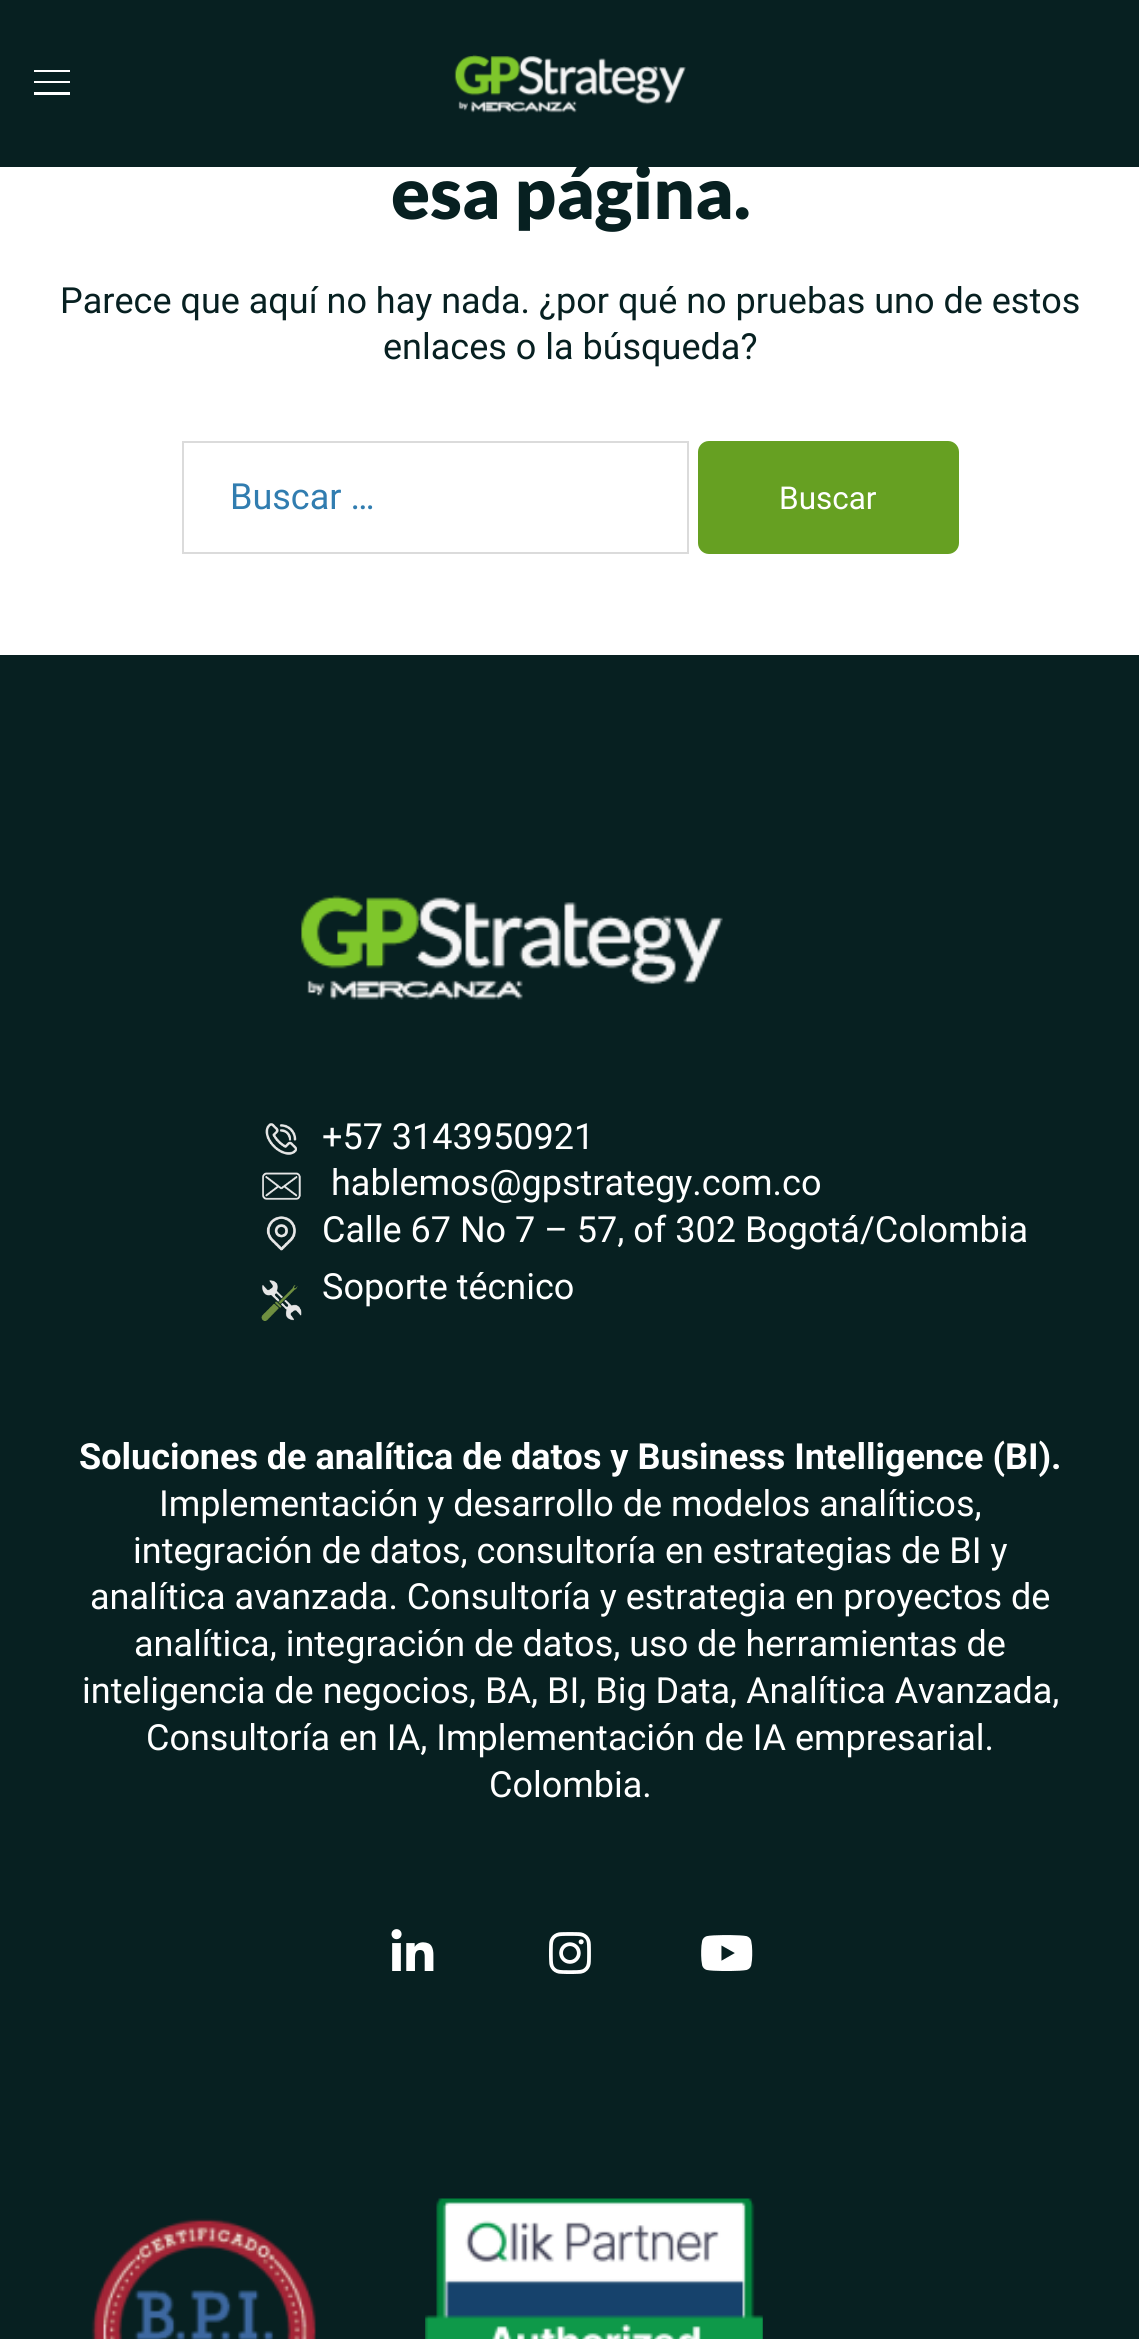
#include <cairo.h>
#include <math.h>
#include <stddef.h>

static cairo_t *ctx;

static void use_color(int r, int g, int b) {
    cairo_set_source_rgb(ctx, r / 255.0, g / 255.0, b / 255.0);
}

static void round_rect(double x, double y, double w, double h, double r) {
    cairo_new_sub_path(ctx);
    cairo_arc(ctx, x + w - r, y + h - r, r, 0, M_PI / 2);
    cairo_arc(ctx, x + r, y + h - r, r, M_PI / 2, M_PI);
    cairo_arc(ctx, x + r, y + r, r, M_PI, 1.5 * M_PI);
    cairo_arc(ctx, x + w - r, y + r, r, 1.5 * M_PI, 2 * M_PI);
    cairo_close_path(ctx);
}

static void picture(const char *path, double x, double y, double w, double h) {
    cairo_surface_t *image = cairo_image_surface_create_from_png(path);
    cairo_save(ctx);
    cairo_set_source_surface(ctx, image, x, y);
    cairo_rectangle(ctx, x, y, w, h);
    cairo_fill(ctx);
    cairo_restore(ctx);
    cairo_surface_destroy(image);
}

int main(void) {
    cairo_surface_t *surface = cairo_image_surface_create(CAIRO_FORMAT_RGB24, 1139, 2339);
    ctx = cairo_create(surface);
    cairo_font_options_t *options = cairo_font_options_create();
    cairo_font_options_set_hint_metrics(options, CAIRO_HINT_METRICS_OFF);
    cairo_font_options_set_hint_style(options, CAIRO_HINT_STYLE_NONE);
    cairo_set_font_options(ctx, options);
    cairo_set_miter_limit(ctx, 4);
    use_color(255, 255, 255);
    cairo_paint(ctx);
    use_color(7, 32, 33);
    cairo_rectangle(ctx, 0, 0, 1139, 167);
    cairo_fill(ctx);
    use_color(255, 255, 255);
    cairo_rectangle(ctx, 34, 70, 36, 2);
    cairo_fill(ctx);
    cairo_rectangle(ctx, 34, 81, 36, 2);
    cairo_fill(ctx);
    cairo_rectangle(ctx, 34, 92, 36, 3);
    cairo_fill(ctx);
    picture("img1.png", 454, 54, 232, 59);
    cairo_select_font_face(ctx, "Lato Black", CAIRO_FONT_SLANT_NORMAL, CAIRO_FONT_WEIGHT_NORMAL);
    cairo_set_font_size(ctx, 72);
    use_color(7, 32, 33);
    cairo_move_to(ctx, 391, 219);
    cairo_show_text(ctx, "esa página.");
    cairo_select_font_face(ctx, "Roboto", CAIRO_FONT_SLANT_NORMAL, CAIRO_FONT_WEIGHT_NORMAL);
    cairo_set_font_size(ctx, 36);
    cairo_move_to(ctx, 60, 313);
    cairo_show_text(ctx, "Parece que aquí no hay nada. ¿por qué no pruebas uno de estos");
    cairo_move_to(ctx, 383, 359);
    cairo_show_text(ctx, "enlaces o la búsqueda?");
    cairo_rectangle(ctx, 183, 442, 505, 111);
    use_color(219, 219, 219);
    cairo_stroke(ctx);
    use_color(49, 125, 176);
    cairo_move_to(ctx, 230, 509);
    cairo_show_text(ctx, "Buscar …");
    use_color(102, 160, 34);
    round_rect(699, 442, 259, 111, 10);
    cairo_fill_preserve(ctx);
    cairo_stroke(ctx);
    cairo_set_font_size(ctx, 31.5);
    use_color(255, 255, 255);
    cairo_move_to(ctx, 779, 509);
    cairo_show_text(ctx, "Buscar");
    use_color(7, 32, 33);
    cairo_rectangle(ctx, 0, 655, 1139, 1684);
    cairo_fill(ctx);
    picture("img2.png", 301, 895, 422, 105);
    picture("img3.png", 265, 1123, 32, 32);
    cairo_set_font_size(ctx, 36);
    use_color(255, 255, 255);
    cairo_move_to(ctx, 322, 1149);
    cairo_show_text(ctx, "+57 3143950921");
    picture("img4.png", 262, 1172, 39, 28);
    cairo_move_to(ctx, 331, 1195);
    cairo_show_text(ctx, "hablemos@gpstrategy.com.co");
    picture("img5.png", 266, 1216, 30, 35);
    cairo_move_to(ctx, 322, 1242);
    cairo_show_text(ctx, "Calle 67 No 7 – 57, of 302 Bogotá/Colombia");
    picture("img6.png", 261, 1280, 41, 41);
    cairo_move_to(ctx, 322, 1299);
    cairo_show_text(ctx, "Soporte técnico");
    cairo_select_font_face(ctx, "Roboto", CAIRO_FONT_SLANT_NORMAL, CAIRO_FONT_WEIGHT_BOLD);
    cairo_move_to(ctx, 79, 1469);
    cairo_show_text(ctx, "Soluciones de analítica de datos y Business Intelligence (BI).");
    cairo_select_font_face(ctx, "Roboto", CAIRO_FONT_SLANT_NORMAL, CAIRO_FONT_WEIGHT_NORMAL);
    cairo_move_to(ctx, 159, 1516);
    cairo_show_text(ctx, "Implementación y desarrollo de modelos analíticos,");
    cairo_move_to(ctx, 133, 1563);
    cairo_show_text(ctx, "integración de datos, consultoría en estrategias de BI y");
    cairo_move_to(ctx, 90, 1609);
    cairo_show_text(ctx, "analítica avanzada. Consultoría y estrategia en proyectos de");
    cairo_move_to(ctx, 134, 1656);
    cairo_show_text(ctx, "analítica, integración de datos, uso de herramientas de");
    cairo_move_to(ctx, 82, 1703);
    cairo_show_text(ctx, "inteligencia de negocios, BA, BI, Big Data, Analítica Avanzada,");
    cairo_move_to(ctx, 146, 1750);
    cairo_show_text(ctx, "Consultoría en IA, Implementación de IA empresarial.");
    cairo_move_to(ctx, 489, 1797);
    cairo_show_text(ctx, "Colombia.");
    picture("img7.png", 391, 1929, 43, 42);
    picture("img8.png", 549, 1932, 42, 42);
    picture("img9.png", 701, 1935, 52, 36);
    picture("img10.png", 91, 2218, 225, 121);
    picture("img11.png", 425, 2198, 338, 141);
    cairo_surface_write_to_png(surface, "result.png");
    cairo_font_options_destroy(options);
    cairo_destroy(ctx);
    cairo_surface_destroy(surface);
    return 0;
}
